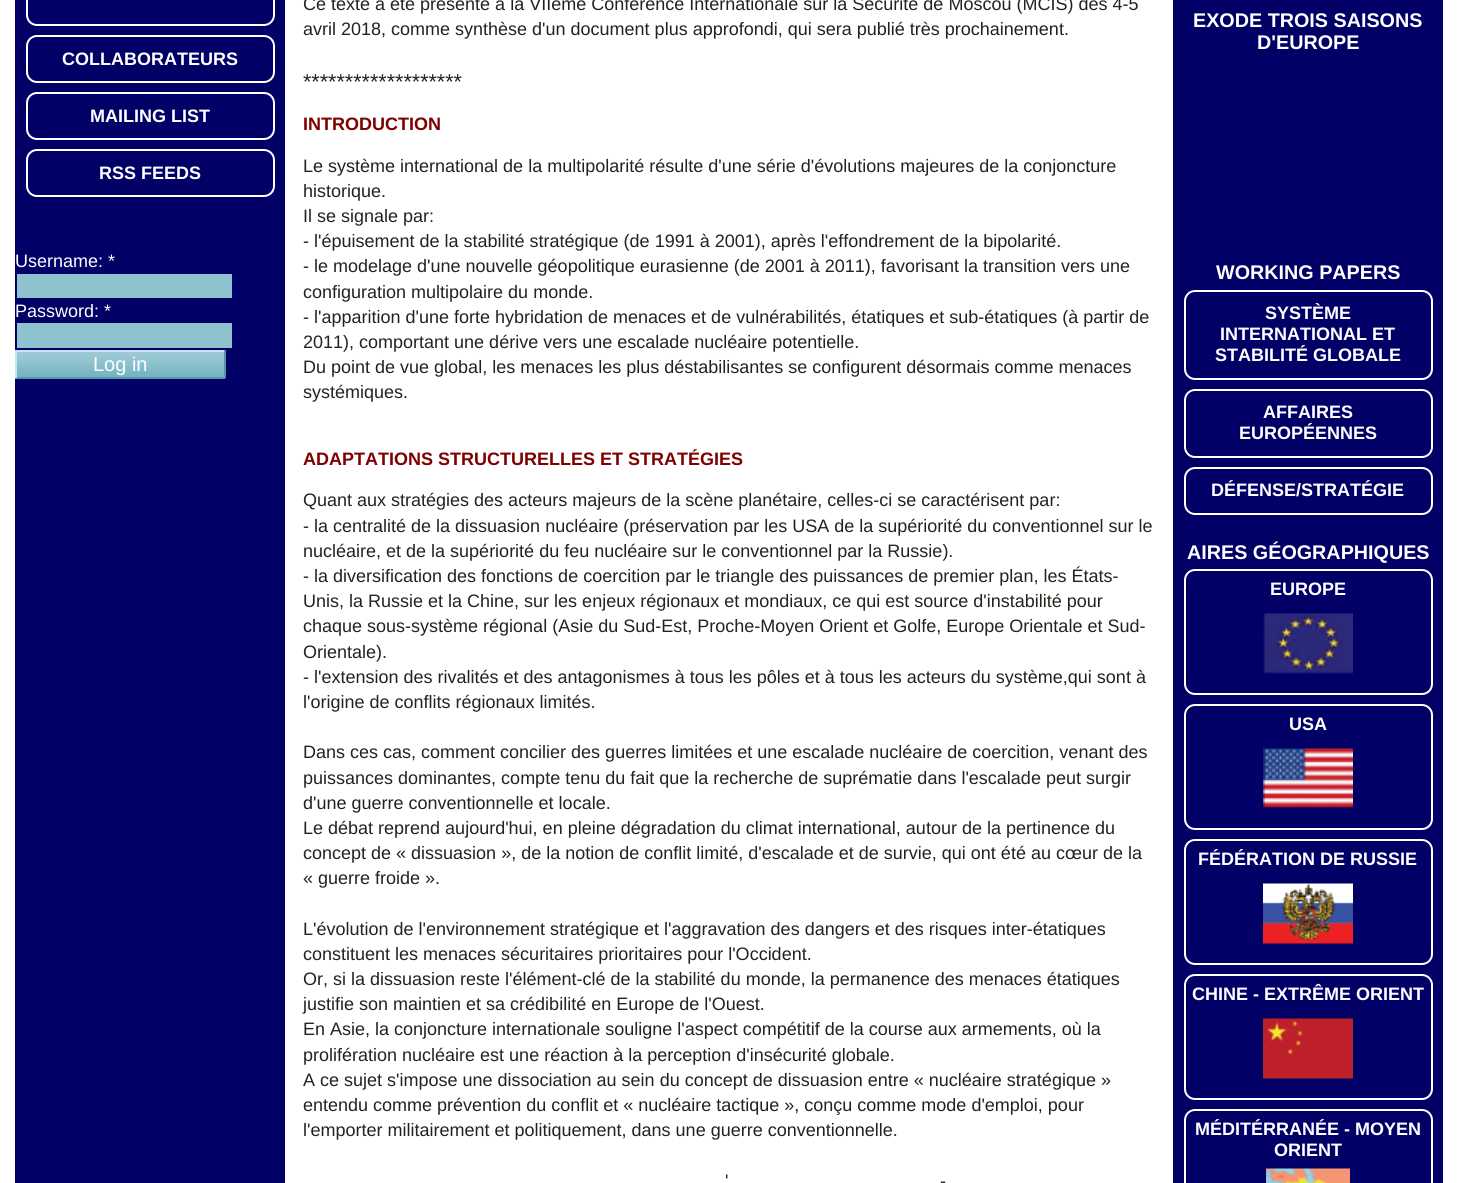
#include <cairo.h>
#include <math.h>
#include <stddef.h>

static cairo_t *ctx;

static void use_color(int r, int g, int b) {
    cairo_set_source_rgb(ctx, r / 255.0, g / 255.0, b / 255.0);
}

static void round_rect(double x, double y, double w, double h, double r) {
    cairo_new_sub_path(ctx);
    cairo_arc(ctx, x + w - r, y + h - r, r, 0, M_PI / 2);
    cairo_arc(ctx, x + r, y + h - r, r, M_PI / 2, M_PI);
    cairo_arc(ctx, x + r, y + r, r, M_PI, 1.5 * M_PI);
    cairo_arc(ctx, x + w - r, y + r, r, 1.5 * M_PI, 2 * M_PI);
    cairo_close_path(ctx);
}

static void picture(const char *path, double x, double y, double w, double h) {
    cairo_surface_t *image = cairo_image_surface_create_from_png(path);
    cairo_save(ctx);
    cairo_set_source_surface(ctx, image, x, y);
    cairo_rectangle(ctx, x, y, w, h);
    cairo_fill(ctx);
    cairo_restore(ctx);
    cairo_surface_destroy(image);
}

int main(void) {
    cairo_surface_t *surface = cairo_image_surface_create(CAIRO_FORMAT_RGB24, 1457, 1183);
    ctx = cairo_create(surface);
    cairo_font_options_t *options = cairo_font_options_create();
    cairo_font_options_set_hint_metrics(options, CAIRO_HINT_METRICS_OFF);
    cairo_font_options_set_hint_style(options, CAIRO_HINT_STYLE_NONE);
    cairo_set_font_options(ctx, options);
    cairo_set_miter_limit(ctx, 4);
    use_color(255, 255, 255);
    cairo_paint(ctx);
    use_color(0, 0, 102);
    cairo_rectangle(ctx, 15, 0, 270, 1183);
    cairo_fill(ctx);
    round_rect(27, -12, 247, 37, 10);
    use_color(255, 255, 255);
    cairo_stroke(ctx);
    round_rect(27, 36, 247, 46, 10);
    cairo_stroke(ctx);
    cairo_select_font_face(ctx, "Liberation Sans", CAIRO_FONT_SLANT_NORMAL, CAIRO_FONT_WEIGHT_BOLD);
    cairo_set_font_size(ctx, 18);
    cairo_move_to(ctx, 62, 65);
    cairo_show_text(ctx, "COLLABORATEURS");
    round_rect(27, 93, 247, 46, 10);
    cairo_stroke(ctx);
    cairo_move_to(ctx, 90, 122);
    cairo_show_text(ctx, "MAILING LIST");
    round_rect(27, 150, 247, 46, 10);
    cairo_stroke(ctx);
    cairo_move_to(ctx, 99, 179);
    cairo_show_text(ctx, "RSS FEEDS");
    cairo_select_font_face(ctx, "Liberation Sans", CAIRO_FONT_SLANT_NORMAL, CAIRO_FONT_WEIGHT_NORMAL);
    cairo_move_to(ctx, 15, 267);
    cairo_show_text(ctx, "Username: *");
    use_color(143, 194, 207);
    cairo_rectangle(ctx, 17, 274, 215, 24);
    cairo_fill(ctx);
    use_color(255, 255, 255);
    cairo_move_to(ctx, 15, 317);
    cairo_show_text(ctx, "Password: *");
    use_color(143, 194, 207);
    cairo_rectangle(ctx, 17, 323, 215, 25);
    cairo_fill(ctx);
    picture("img1.png", 17, 352, 207, 25);
    use_color(191, 232, 242);
    cairo_rectangle(ctx, 15, 350, 210, 2);
    cairo_fill(ctx);
    use_color(84, 151, 168);
    cairo_rectangle(ctx, 224, 350, 2, 28);
    cairo_fill(ctx);
    cairo_rectangle(ctx, 15, 377, 210, 2);
    cairo_fill(ctx);
    use_color(191, 232, 242);
    cairo_rectangle(ctx, 15, 350, 2, 28);
    cairo_fill(ctx);
    cairo_set_font_size(ctx, 20);
    use_color(255, 255, 255);
    cairo_move_to(ctx, 93, 371);
    cairo_show_text(ctx, "Log in");
    cairo_set_font_size(ctx, 18);
    use_color(37, 34, 29);
    cairo_move_to(ctx, 303, 10);
    cairo_show_text(ctx, "Ce texte a été présenté à la VIIème Conférence Internationale sur la Sécurité de Moscou (MCIS) des 4-5");
    cairo_move_to(ctx, 303, 35);
    cairo_show_text(ctx, "avril 2018, comme synthèse d'un document plus approfondi, qui sera publié très prochainement.");
    cairo_set_font_size(ctx, 21.5);
    cairo_move_to(ctx, 303, 89);
    cairo_show_text(ctx, "*******************");
    cairo_select_font_face(ctx, "Liberation Sans", CAIRO_FONT_SLANT_NORMAL, CAIRO_FONT_WEIGHT_BOLD);
    cairo_set_font_size(ctx, 18);
    use_color(128, 0, 0);
    cairo_move_to(ctx, 303, 130);
    cairo_show_text(ctx, "INTRODUCTION");
    cairo_select_font_face(ctx, "Liberation Sans", CAIRO_FONT_SLANT_NORMAL, CAIRO_FONT_WEIGHT_NORMAL);
    use_color(37, 34, 29);
    cairo_move_to(ctx, 303, 172);
    cairo_show_text(ctx, "Le système international de la multipolarité résulte d'une série d'évolutions majeures de la conjoncture");
    cairo_move_to(ctx, 303, 197);
    cairo_show_text(ctx, "historique.");
    cairo_move_to(ctx, 303, 222);
    cairo_show_text(ctx, "Il se signale par:");
    cairo_move_to(ctx, 303, 247);
    cairo_show_text(ctx, "- l'épuisement de la stabilité stratégique (de 1991 à 2001), après l'effondrement de la bipolarité.");
    cairo_move_to(ctx, 303, 272);
    cairo_show_text(ctx, "- le modelage d'une nouvelle géopolitique eurasienne (de 2001 à 2011), favorisant la transition vers une");
    cairo_move_to(ctx, 303, 298);
    cairo_show_text(ctx, "configuration multipolaire du monde.");
    cairo_move_to(ctx, 303, 323);
    cairo_show_text(ctx, "- l'apparition d'une forte hybridation de menaces et de vulnérabilités, étatiques et sub-étatiques (à partir de");
    cairo_move_to(ctx, 303, 348);
    cairo_show_text(ctx, "2011), comportant une dérive vers une escalade nucléaire potentielle.");
    cairo_move_to(ctx, 303, 373);
    cairo_show_text(ctx, "Du point de vue global, les menaces les plus déstabilisantes se configurent désormais comme menaces");
    cairo_move_to(ctx, 303, 398);
    cairo_show_text(ctx, "systémiques.");
    cairo_select_font_face(ctx, "Liberation Sans", CAIRO_FONT_SLANT_NORMAL, CAIRO_FONT_WEIGHT_BOLD);
    use_color(128, 0, 0);
    cairo_move_to(ctx, 303, 465);
    cairo_show_text(ctx, "ADAPTATIONS STRUCTURELLES ET STRATÉGIES");
    cairo_select_font_face(ctx, "Liberation Sans", CAIRO_FONT_SLANT_NORMAL, CAIRO_FONT_WEIGHT_NORMAL);
    use_color(37, 34, 29);
    cairo_move_to(ctx, 303, 506);
    cairo_show_text(ctx, "Quant aux stratégies des acteurs majeurs de la scène planétaire, celles-ci se caractérisent par:");
    cairo_move_to(ctx, 303, 532);
    cairo_show_text(ctx, "- la centralité de la dissuasion nucléaire (préservation par les USA de la supériorité du conventionnel sur le");
    cairo_move_to(ctx, 303, 557);
    cairo_show_text(ctx, "nucléaire, et de la supériorité du feu nucléaire sur le conventionnel par la Russie).");
    cairo_move_to(ctx, 303, 582);
    cairo_show_text(ctx, "- la diversification des fonctions de coercition par le triangle des puissances de premier plan, les États-");
    cairo_move_to(ctx, 303, 607);
    cairo_show_text(ctx, "Unis, la Russie et la Chine, sur les enjeux régionaux et mondiaux, ce qui est source d'instabilité pour");
    cairo_move_to(ctx, 303, 632);
    cairo_show_text(ctx, "chaque sous-système régional (Asie du Sud-Est, Proche-Moyen Orient et Golfe, Europe Orientale et Sud-");
    cairo_move_to(ctx, 303, 658);
    cairo_show_text(ctx, "Orientale).");
    cairo_move_to(ctx, 303, 683);
    cairo_show_text(ctx, "- l'extension des rivalités et des antagonismes à tous les pôles et à tous les acteurs du système,qui sont à");
    cairo_move_to(ctx, 303, 708);
    cairo_show_text(ctx, "l'origine de conflits régionaux limités.");
    cairo_move_to(ctx, 303, 758);
    cairo_show_text(ctx, "Dans ces cas, comment concilier des guerres limitées et une escalade nucléaire de coercition, venant des");
    cairo_move_to(ctx, 303, 784);
    cairo_show_text(ctx, "puissances dominantes, compte tenu du fait que la recherche de suprématie dans l'escalade peut surgir");
    cairo_move_to(ctx, 303, 809);
    cairo_show_text(ctx, "d'une guerre conventionnelle et locale.");
    cairo_move_to(ctx, 303, 834);
    cairo_show_text(ctx, "Le débat reprend aujourd'hui, en pleine dégradation du climat international, autour de la pertinence du");
    cairo_move_to(ctx, 303, 859);
    cairo_show_text(ctx, "concept de « dissuasion », de la notion de conflit limité, d'escalade et de survie, qui ont été au cœur de la");
    cairo_move_to(ctx, 303, 884);
    cairo_show_text(ctx, "« guerre froide ».");
    cairo_move_to(ctx, 303, 935);
    cairo_show_text(ctx, "L'évolution de l'environnement stratégique et l'aggravation des dangers et des risques inter-étatiques");
    cairo_move_to(ctx, 303, 960);
    cairo_show_text(ctx, "constituent les menaces sécuritaires prioritaires pour l'Occident.");
    cairo_move_to(ctx, 303, 985);
    cairo_show_text(ctx, "Or, si la dissuasion reste l'élément-clé de la stabilité du monde, la permanence des menaces étatiques");
    cairo_move_to(ctx, 303, 1010);
    cairo_show_text(ctx, "justifie son maintien et sa crédibilité en Europe de l'Ouest.");
    cairo_move_to(ctx, 303, 1035);
    cairo_show_text(ctx, "En Asie, la conjoncture internationale souligne l'aspect compétitif de la course aux armements, où la");
    cairo_move_to(ctx, 303, 1061);
    cairo_show_text(ctx, "prolifération nucléaire est une réaction à la perception d'insécurité globale.");
    cairo_move_to(ctx, 303, 1086);
    cairo_show_text(ctx, "A ce sujet s'impose une dissociation au sein du concept de dissuasion entre « nucléaire stratégique »");
    cairo_move_to(ctx, 303, 1111);
    cairo_show_text(ctx, "entendu comme prévention du conflit et « nucléaire tactique », conçu comme mode d'emploi, pour");
    cairo_move_to(ctx, 303, 1136);
    cairo_show_text(ctx, "l'emporter militairement et politiquement, dans une guerre conventionnelle.");
    cairo_move_to(ctx, 725, 1187);
    cairo_show_text(ctx, "'");
    cairo_move_to(ctx, 940, 1187);
    cairo_show_text(ctx, "-");
    use_color(0, 0, 102);
    cairo_rectangle(ctx, 1173, 0, 270, 1183);
    cairo_fill(ctx);
    cairo_select_font_face(ctx, "Liberation Sans", CAIRO_FONT_SLANT_NORMAL, CAIRO_FONT_WEIGHT_BOLD);
    cairo_set_font_size(ctx, 19.75);
    use_color(255, 255, 255);
    cairo_move_to(ctx, 1193, 27);
    cairo_show_text(ctx, "EXODE TROIS SAISONS");
    cairo_move_to(ctx, 1257, 49);
    cairo_show_text(ctx, "D'EUROPE");
    cairo_move_to(ctx, 1216, 279);
    cairo_show_text(ctx, "WORKING PAPERS");
    round_rect(1185, 291, 247, 88, 10);
    cairo_stroke(ctx);
    cairo_set_font_size(ctx, 18);
    cairo_move_to(ctx, 1265, 319);
    cairo_show_text(ctx, "SYSTÈME");
    cairo_move_to(ctx, 1220, 340);
    cairo_show_text(ctx, "INTERNATIONAL ET");
    cairo_move_to(ctx, 1215, 361);
    cairo_show_text(ctx, "STABILITÉ GLOBALE");
    round_rect(1185, 390, 247, 67, 10);
    cairo_stroke(ctx);
    cairo_move_to(ctx, 1263, 418);
    cairo_show_text(ctx, "AFFAIRES");
    cairo_move_to(ctx, 1239, 439);
    cairo_show_text(ctx, "EUROPÉENNES");
    round_rect(1185, 468, 247, 46, 10);
    cairo_stroke(ctx);
    cairo_move_to(ctx, 1211, 496);
    cairo_show_text(ctx, "DÉFENSE/STRATÉGIE");
    cairo_set_font_size(ctx, 19.75);
    cairo_move_to(ctx, 1187, 559);
    cairo_show_text(ctx, "AIRES GÉOGRAPHIQUES");
    picture("img2.png", 1263, 613, 90, 61);
    round_rect(1185, 570, 247, 124, 10);
    cairo_stroke(ctx);
    cairo_set_font_size(ctx, 18);
    cairo_move_to(ctx, 1270, 595);
    cairo_show_text(ctx, "EUROPE");
    picture("img3.png", 1263, 748, 90, 61);
    round_rect(1185, 705, 247, 124, 10);
    cairo_stroke(ctx);
    cairo_move_to(ctx, 1289, 730);
    cairo_show_text(ctx, "USA");
    picture("img4.png", 1263, 883, 90, 61);
    round_rect(1185, 840, 247, 124, 10);
    cairo_stroke(ctx);
    cairo_move_to(ctx, 1198, 865);
    cairo_show_text(ctx, "FÉDÉRATION DE RUSSIE");
    picture("img5.png", 1263, 1018, 90, 61);
    round_rect(1185, 975, 247, 124, 10);
    cairo_stroke(ctx);
    cairo_move_to(ctx, 1192, 1000);
    cairo_show_text(ctx, "CHINE - EXTRÊME ORIENT");
    picture("img6.png", 1266, 1168, 84, 15);
    round_rect(1185, 1110, 247, 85, 10);
    cairo_stroke(ctx);
    cairo_move_to(ctx, 1195, 1135);
    cairo_show_text(ctx, "MÉDITÉRRANÉE - MOYEN");
    cairo_move_to(ctx, 1274, 1156);
    cairo_show_text(ctx, "ORIENT");
    cairo_surface_write_to_png(surface, "result.png");
    cairo_font_options_destroy(options);
    cairo_destroy(ctx);
    cairo_surface_destroy(surface);
    return 0;
}
